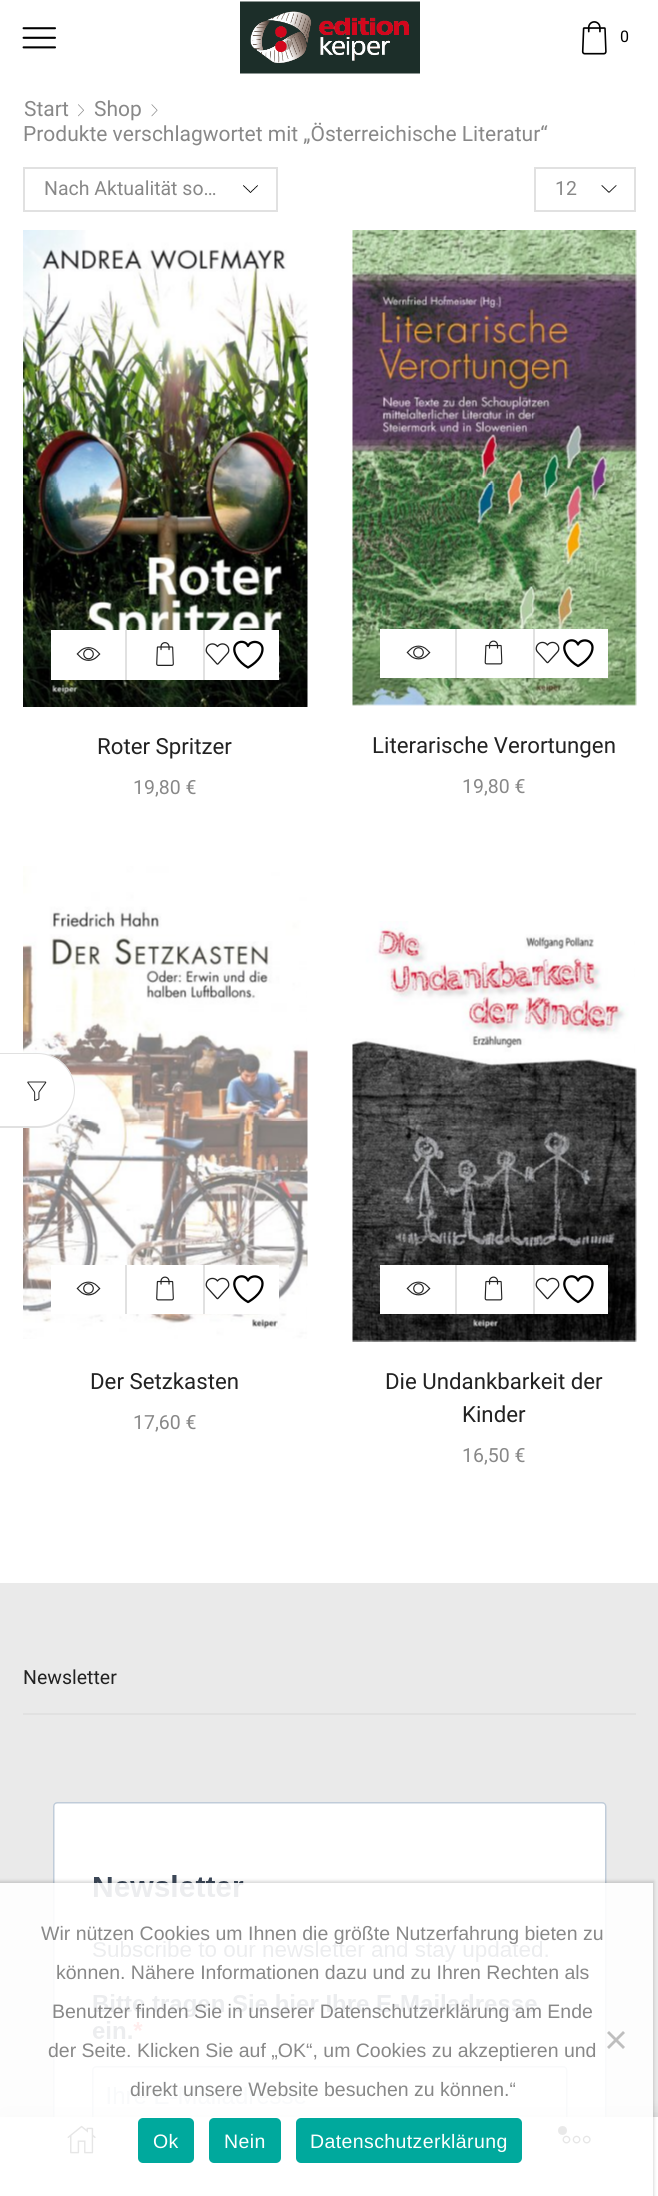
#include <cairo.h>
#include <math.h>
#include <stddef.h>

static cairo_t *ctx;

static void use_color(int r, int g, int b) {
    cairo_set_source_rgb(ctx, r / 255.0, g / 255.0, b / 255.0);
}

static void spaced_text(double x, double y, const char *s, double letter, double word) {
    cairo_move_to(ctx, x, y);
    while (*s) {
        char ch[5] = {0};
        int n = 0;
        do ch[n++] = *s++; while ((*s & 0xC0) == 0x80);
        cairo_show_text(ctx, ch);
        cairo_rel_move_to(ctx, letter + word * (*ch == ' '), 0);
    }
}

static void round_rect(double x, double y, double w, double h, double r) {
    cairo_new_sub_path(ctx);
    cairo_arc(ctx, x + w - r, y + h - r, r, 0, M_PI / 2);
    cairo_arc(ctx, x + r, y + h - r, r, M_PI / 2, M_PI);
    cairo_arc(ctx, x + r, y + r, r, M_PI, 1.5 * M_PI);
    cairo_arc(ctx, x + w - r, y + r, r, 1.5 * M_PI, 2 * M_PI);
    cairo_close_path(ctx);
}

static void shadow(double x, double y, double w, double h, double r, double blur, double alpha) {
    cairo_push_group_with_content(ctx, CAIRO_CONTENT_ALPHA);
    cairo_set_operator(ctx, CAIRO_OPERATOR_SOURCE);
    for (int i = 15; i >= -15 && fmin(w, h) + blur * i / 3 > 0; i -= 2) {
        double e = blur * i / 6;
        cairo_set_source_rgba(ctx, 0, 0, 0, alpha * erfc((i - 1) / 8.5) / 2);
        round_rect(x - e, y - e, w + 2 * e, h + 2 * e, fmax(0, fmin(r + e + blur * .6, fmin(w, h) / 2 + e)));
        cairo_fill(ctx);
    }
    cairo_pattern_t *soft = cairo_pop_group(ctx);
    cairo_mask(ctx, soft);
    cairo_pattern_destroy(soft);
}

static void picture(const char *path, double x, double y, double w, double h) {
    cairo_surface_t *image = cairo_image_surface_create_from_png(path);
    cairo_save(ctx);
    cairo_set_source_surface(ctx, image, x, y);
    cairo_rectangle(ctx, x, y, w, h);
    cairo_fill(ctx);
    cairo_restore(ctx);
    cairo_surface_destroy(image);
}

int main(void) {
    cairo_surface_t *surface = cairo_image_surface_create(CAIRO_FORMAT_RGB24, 658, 2196);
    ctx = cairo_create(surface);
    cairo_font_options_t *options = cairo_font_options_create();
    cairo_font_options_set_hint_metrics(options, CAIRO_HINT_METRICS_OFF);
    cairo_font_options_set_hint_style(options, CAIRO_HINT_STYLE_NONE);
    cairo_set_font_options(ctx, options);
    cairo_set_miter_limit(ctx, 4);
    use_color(255, 255, 255);
    cairo_paint(ctx);
    picture("img1.png", 22, 27, 34, 22);
    picture("img2.png", 240, 1, 180, 73);
    picture("img3.png", 581, 21, 26, 34);
    cairo_select_font_face(ctx, "Roboto", CAIRO_FONT_SLANT_NORMAL, CAIRO_FONT_WEIGHT_NORMAL);
    cairo_set_font_size(ctx, 16);
    use_color(0, 0, 0);
    cairo_move_to(ctx, 620, 42);
    cairo_show_text(ctx, "0");
    cairo_set_font_size(ctx, 21);
    use_color(136, 136, 136);
    cairo_move_to(ctx, 24, 116);
    cairo_show_text(ctx, "Start");
    picture("img4.png", 78, 104, 6, 13);
    cairo_move_to(ctx, 94, 116);
    cairo_show_text(ctx, "Shop");
    picture("img5.png", 151, 104, 7, 13);
    cairo_move_to(ctx, 23, 141);
    cairo_show_text(ctx, "Produkte verschlagwortet mit „Österreichische Literatur“");
    picture("img6.png", 243, 185, 15, 8);
    cairo_rectangle(ctx, 24, 168, 253, 43);
    use_color(225, 225, 225);
    cairo_stroke(ctx);
    cairo_set_font_size(ctx, 19.5);
    use_color(136, 136, 136);
    cairo_move_to(ctx, 44, 195);
    cairo_show_text(ctx, "Nach Aktualität so…");
    picture("img7.png", 601, 185, 16, 8);
    cairo_rectangle(ctx, 535, 168, 100, 43);
    use_color(225, 225, 225);
    cairo_stroke(ctx);
    use_color(136, 136, 136);
    cairo_move_to(ctx, 555, 195);
    cairo_show_text(ctx, "12");
    picture("img8.png", 23, 230, 285, 477);
    use_color(255, 255, 255);
    cairo_rectangle(ctx, 51, 630, 74, 50);
    cairo_fill(ctx);
    picture("img9.png", 76, 647, 25, 14);
    use_color(225, 225, 225);
    cairo_rectangle(ctx, 125, 630, 2, 50);
    cairo_fill(ctx);
    use_color(255, 255, 255);
    cairo_rectangle(ctx, 127, 630, 76, 50);
    cairo_fill(ctx);
    picture("img10.png", 156, 642, 18, 24);
    cairo_rectangle(ctx, 205, 630, 74, 50);
    cairo_fill(ctx);
    use_color(225, 225, 225);
    cairo_rectangle(ctx, 203, 630, 2, 50);
    cairo_fill(ctx);
    picture("img11.png", 205, 643, 25, 22);
    cairo_new_path(ctx);
    cairo_move_to(ctx, 262.5, 649);
    cairo_curve_to(ctx, 262.5, 641, 251, 639.5, 248, 646);
    cairo_curve_to(ctx, 244.5, 637.5, 228.5, 642.5, 236.5, 656.5);
    cairo_curve_to(ctx, 239, 661, 243.5, 665, 248, 667.5);
    cairo_curve_to(ctx, 248, 667.5, 262.5, 660, 262.5, 649);
    cairo_close_path(ctx);
    use_color(0, 0, 0);
    cairo_set_line_width(ctx, 2.3);
    cairo_set_line_cap(ctx, CAIRO_LINE_CAP_ROUND);
    cairo_set_line_join(ctx, CAIRO_LINE_JOIN_ROUND);
    cairo_stroke(ctx);
    cairo_set_font_size(ctx, 22.25);
    use_color(34, 34, 34);
    cairo_move_to(ctx, 97, 754);
    cairo_show_text(ctx, "Roter Spritzer");
    cairo_set_font_size(ctx, 19.5);
    use_color(136, 136, 136);
    cairo_move_to(ctx, 133, 794);
    cairo_show_text(ctx, "19,80 €");
    picture("img12.png", 352, 230, 285, 476);
    use_color(255, 255, 255);
    cairo_rectangle(ctx, 380, 629, 75, 49);
    cairo_fill(ctx);
    picture("img13.png", 406, 645, 25, 15);
    use_color(225, 225, 225);
    cairo_rectangle(ctx, 455, 629, 2, 49);
    cairo_fill(ctx);
    use_color(255, 255, 255);
    cairo_rectangle(ctx, 457, 629, 76, 49);
    cairo_fill(ctx);
    picture("img14.png", 484, 640, 19, 25);
    cairo_rectangle(ctx, 535, 629, 73, 49);
    cairo_fill(ctx);
    use_color(225, 225, 225);
    cairo_rectangle(ctx, 533, 629, 2, 49);
    cairo_fill(ctx);
    picture("img15.png", 535, 641, 25, 23);
    cairo_new_path(ctx);
    cairo_move_to(ctx, 592.5, 647.5);
    cairo_curve_to(ctx, 592.5, 639.5, 581, 638, 578, 644.5);
    cairo_curve_to(ctx, 574.5, 636, 558.5, 641, 566.5, 655);
    cairo_curve_to(ctx, 569, 659.5, 573.5, 663.5, 578, 666);
    cairo_curve_to(ctx, 578, 666, 592.5, 658.5, 592.5, 647.5);
    cairo_close_path(ctx);
    use_color(0, 0, 0);
    cairo_stroke(ctx);
    cairo_set_font_size(ctx, 22.25);
    use_color(34, 34, 34);
    cairo_move_to(ctx, 372, 753);
    cairo_show_text(ctx, "Literarische Verortungen");
    cairo_set_font_size(ctx, 19.5);
    use_color(136, 136, 136);
    cairo_move_to(ctx, 462, 793);
    cairo_show_text(ctx, "19,80 €");
    picture("img16.png", 23, 866, 285, 473);
    use_color(255, 255, 255);
    cairo_rectangle(ctx, 51, 1265, 74, 49);
    cairo_fill(ctx);
    picture("img13.png", 76, 1281, 25, 15);
    use_color(225, 225, 225);
    cairo_rectangle(ctx, 125, 1265, 2, 49);
    cairo_fill(ctx);
    use_color(255, 255, 255);
    cairo_rectangle(ctx, 127, 1265, 76, 49);
    cairo_fill(ctx);
    picture("img17.png", 156, 1276, 18, 25);
    cairo_rectangle(ctx, 205, 1265, 74, 49);
    cairo_fill(ctx);
    use_color(225, 225, 225);
    cairo_rectangle(ctx, 203, 1265, 2, 49);
    cairo_fill(ctx);
    picture("img15.png", 205, 1277, 25, 23);
    cairo_new_path(ctx);
    cairo_move_to(ctx, 262.5, 1283.5);
    cairo_curve_to(ctx, 262.5, 1275.5, 251, 1274, 248, 1280.5);
    cairo_curve_to(ctx, 244.5, 1272, 228.5, 1277, 236.5, 1291);
    cairo_curve_to(ctx, 239, 1295.5, 243.5, 1299.5, 248, 1302);
    cairo_curve_to(ctx, 248, 1302, 262.5, 1294.5, 262.5, 1283.5);
    cairo_close_path(ctx);
    use_color(0, 0, 0);
    cairo_stroke(ctx);
    cairo_set_font_size(ctx, 22.25);
    use_color(34, 34, 34);
    cairo_move_to(ctx, 90, 1389);
    cairo_show_text(ctx, "Der Setzkasten");
    cairo_set_font_size(ctx, 19.5);
    use_color(136, 136, 136);
    cairo_move_to(ctx, 133, 1429);
    cairo_show_text(ctx, "17,60 €");
    picture("img18.png", 352, 921, 285, 421);
    use_color(255, 255, 255);
    cairo_rectangle(ctx, 380, 1265, 75, 49);
    cairo_fill(ctx);
    picture("img13.png", 406, 1281, 25, 15);
    use_color(225, 225, 225);
    cairo_rectangle(ctx, 455, 1265, 2, 49);
    cairo_fill(ctx);
    use_color(255, 255, 255);
    cairo_rectangle(ctx, 457, 1265, 76, 49);
    cairo_fill(ctx);
    picture("img14.png", 484, 1276, 19, 25);
    cairo_rectangle(ctx, 535, 1265, 73, 49);
    cairo_fill(ctx);
    use_color(225, 225, 225);
    cairo_rectangle(ctx, 533, 1265, 2, 49);
    cairo_fill(ctx);
    picture("img15.png", 535, 1277, 25, 23);
    cairo_new_path(ctx);
    cairo_move_to(ctx, 592.5, 1283.5);
    cairo_curve_to(ctx, 592.5, 1275.5, 581, 1274, 578, 1280.5);
    cairo_curve_to(ctx, 574.5, 1272, 558.5, 1277, 566.5, 1291);
    cairo_curve_to(ctx, 569, 1295.5, 573.5, 1299.5, 578, 1302);
    cairo_curve_to(ctx, 578, 1302, 592.5, 1294.5, 592.5, 1283.5);
    cairo_close_path(ctx);
    use_color(0, 0, 0);
    cairo_stroke(ctx);
    cairo_set_font_size(ctx, 22.25);
    use_color(34, 34, 34);
    cairo_move_to(ctx, 385, 1389);
    cairo_show_text(ctx, "Die Undankbarkeit der");
    cairo_move_to(ctx, 462, 1422);
    cairo_show_text(ctx, "Kinder");
    cairo_set_font_size(ctx, 19.5);
    use_color(136, 136, 136);
    cairo_move_to(ctx, 462, 1462);
    cairo_show_text(ctx, "16,50 €");
    use_color(234, 234, 234);
    cairo_rectangle(ctx, 0, 1583, 658, 534);
    cairo_fill(ctx);
    use_color(225, 225, 225);
    cairo_rectangle(ctx, 23, 1713, 613, 2);
    cairo_fill(ctx);
    use_color(34, 34, 34);
    cairo_move_to(ctx, 23, 1684);
    cairo_show_text(ctx, "Newsletter");
    picture("img19.png", 53, 1802, 554, 315);
    use_color(0, 0, 0);
    shadow(3, 2117, 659, 79, 0, 9, 0.15);
    use_color(255, 255, 255);
    cairo_rectangle(ctx, 0, 2117, 658, 79);
    cairo_fill(ctx);
    picture("img20.png", 67, 2125, 29, 29);
    use_color(34, 34, 34);
    cairo_arc(ctx, 562.5, 2130.5, 4.5, 0, 2 * M_PI);
    cairo_fill(ctx);
    picture("img21.png", 562, 2135, 29, 9);
    use_color(255, 255, 255);
    cairo_new_path(ctx);
    cairo_move_to(ctx, 0, 1053);
    cairo_line_to(ctx, 37.5, 1053);
    cairo_curve_to(ctx, 58, 1053, 75, 1070, 75, 1090.5);
    cairo_curve_to(ctx, 75, 1111, 58, 1128, 37.5, 1128);
    cairo_line_to(ctx, 0, 1128);
    cairo_close_path(ctx);
    cairo_fill(ctx);
    use_color(225, 225, 225);
    cairo_set_fill_rule(ctx, CAIRO_FILL_RULE_EVEN_ODD);
    cairo_new_path(ctx);
    cairo_move_to(ctx, 0, 1053);
    cairo_line_to(ctx, 38, 1053);
    cairo_curve_to(ctx, 58, 1053, 75, 1070, 75, 1090);
    cairo_curve_to(ctx, 75, 1111, 58, 1128, 38, 1128);
    cairo_line_to(ctx, 0, 1128);
    cairo_close_path(ctx);
    cairo_move_to(ctx, 0, 1054);
    cairo_line_to(ctx, 38, 1054);
    cairo_curve_to(ctx, 57, 1054, 74, 1071, 74, 1090);
    cairo_curve_to(ctx, 74, 1110, 57, 1126, 38, 1126);
    cairo_line_to(ctx, 0, 1126);
    cairo_close_path(ctx);
    cairo_fill(ctx);
    picture("img22.png", 27, 1081, 20, 20);
    cairo_save(ctx);
    cairo_new_path(ctx);
    cairo_move_to(ctx, 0, 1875);
    cairo_line_to(ctx, 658, 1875);
    cairo_line_to(ctx, 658, 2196);
    cairo_line_to(ctx, 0, 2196);
    cairo_close_path(ctx);
    cairo_move_to(ctx, -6, 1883);
    cairo_line_to(ctx, 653, 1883);
    cairo_line_to(ctx, 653, 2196);
    cairo_line_to(ctx, -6, 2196);
    cairo_close_path(ctx);
    cairo_clip(ctx);
    use_color(0, 0, 0);
    shadow(-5, 1881, 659, 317, 0, 1.5, 0.15);
    cairo_restore(ctx);
    cairo_set_source_rgba(ctx, 1, 1, 1, 0.9);
    cairo_rectangle(ctx, 0, 1883, 653, 313);
    cairo_fill(ctx);
    cairo_select_font_face(ctx, "Liberation Sans", CAIRO_FONT_SLANT_NORMAL, CAIRO_FONT_WEIGHT_NORMAL);
    use_color(136, 136, 136);
    cairo_move_to(ctx, 41, 1940);
    cairo_show_text(ctx, "Wir nützen Cookies um Ihnen die größte Nutzerfahrung bieten zu");
    cairo_move_to(ctx, 56, 1979);
    cairo_show_text(ctx, "können. Nähere Informationen dazu und zu Ihren Rechten als");
    cairo_move_to(ctx, 52, 2018);
    cairo_show_text(ctx, "Benutzer finden Sie in unserer Datenschutzerklärung am Ende");
    cairo_move_to(ctx, 48, 2057);
    cairo_show_text(ctx, "der Seite. Klicken Sie auf „OK“, um Cookies zu akzeptieren und");
    cairo_move_to(ctx, 130, 2096);
    cairo_show_text(ctx, "direkt unsere Website besuchen zu können.“");
    use_color(190, 190, 190);
    cairo_set_fill_rule(ctx, CAIRO_FILL_RULE_WINDING);
    cairo_new_path(ctx);
    cairo_move_to(ctx, 623, 2031);
    cairo_line_to(ctx, 625, 2033);
    cairo_line_to(ctx, 609, 2049);
    cairo_line_to(ctx, 607, 2047);
    cairo_close_path(ctx);
    cairo_fill(ctx);
    cairo_new_path(ctx);
    cairo_move_to(ctx, 607, 2033);
    cairo_line_to(ctx, 609, 2031);
    cairo_line_to(ctx, 625, 2047);
    cairo_line_to(ctx, 623, 2049);
    cairo_close_path(ctx);
    cairo_fill(ctx);
    use_color(0, 169, 157);
    round_rect(138, 2118, 56, 45, 5);
    cairo_fill(ctx);
    use_color(255, 255, 255);
    spaced_text(153, 2148, "Ok", 0.4, 0);
    use_color(0, 169, 157);
    round_rect(209, 2118, 72, 45, 5);
    cairo_fill(ctx);
    use_color(255, 255, 255);
    spaced_text(224, 2148, "Nein", 0.4, 0);
    use_color(0, 169, 157);
    round_rect(296, 2118, 226, 45, 5);
    cairo_fill(ctx);
    use_color(255, 255, 255);
    spaced_text(310, 2148, "Datenschutzerklärung", 0.4, 0);
    cairo_surface_write_to_png(surface, "result.png");
    cairo_font_options_destroy(options);
    cairo_destroy(ctx);
    cairo_surface_destroy(surface);
    return 0;
}
